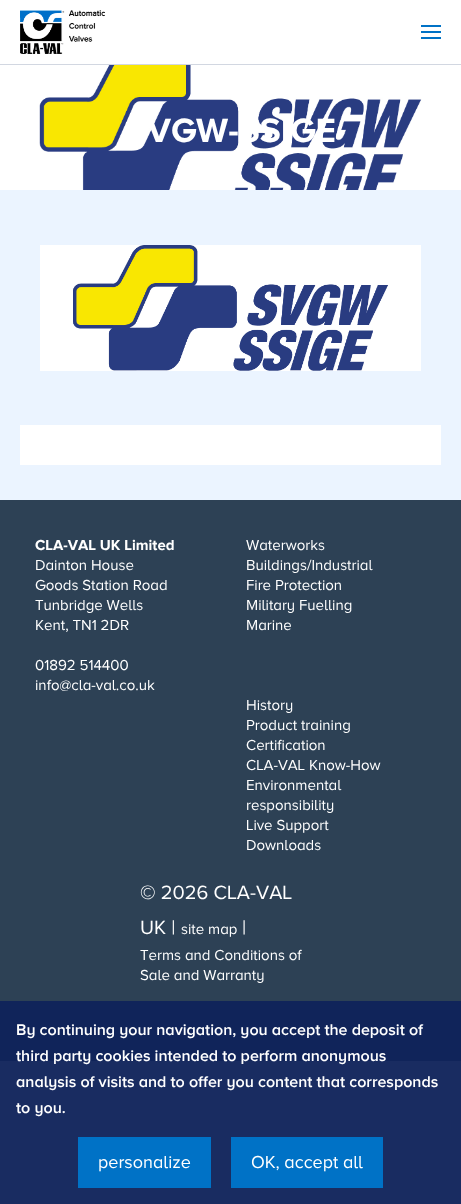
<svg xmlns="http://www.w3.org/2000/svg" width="461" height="1204">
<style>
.a{font:bold 35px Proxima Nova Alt;fill:#fff}
.b{font:bold 15px Proxima Nova Alt;fill:#fff}
.c{font:15px Proxima Nova Alt;fill:#fff}
.d{font:20px Proxima Nova Alt;fill:#fff}
.e{font:600 16px Proxima Nova Alt;fill:#fff}
.f{font:18px Proxima Nova Alt;fill:#fff}
</style>
<rect width="100%" height="100%" fill="#fff"/>
<path fill="#192c61" d="M0 1061h461v143H0z"/>
<image href="1.png" x="39" y="65" width="383" height="125"/>
<path fill="#d2d7e1" d="M0 64h461v1H0z"/>
<image href="2.png" x="20" y="10" width="85" height="44"/>
<path fill="#0072c6" d="M421 31h20v2H421z"/>
<path fill="#0072c6" d="M421 25h20v2H421z"/>
<path fill="#0072c6" d="M421 37h20v2H421z"/>
<path fill="#ebf4ff" d="M0 190h461v310H0z"/>
<image href="3.png" x="40" y="245" width="381" height="126"/>
<path fill="#fff" d="M20 425h421v40H20z"/>
<path fill="#2d4155" d="M0 500h461v501H0z"/>
<path fill="#10245a" d="M0 1001h461v60H0z"/>
<path fill="#0072c6" d="M78 1137h133v51H78z"/>
<path fill="#0072c6" d="M231 1137h152v51H231z"/>
<text class="a" x="147" y="142">VGW-SSIGE</text>
<text class="b" x="35" y="550">CLA-VAL UK Limited</text>
<text class="c" x="35" y="570">Dainton House</text>
<text class="c" x="35" y="590">Goods Station Road</text>
<text class="c" x="35" y="610">Tunbridge Wells</text>
<text class="c" x="35" y="630">Kent, TN1 2DR</text>
<text class="c" x="35" y="670">01892 514400</text>
<text class="c" x="35" y="690">info@cla-val.co.uk</text>
<text class="c" x="246" y="550">Waterworks</text>
<text class="c" x="246" y="570">Buildings/Industrial</text>
<text class="c" x="246" y="590">Fire Protection</text>
<text class="c" x="246" y="610">Military Fuelling</text>
<text class="c" x="246" y="630">Marine</text>
<text class="c" x="246" y="710">History</text>
<text class="c" x="246" y="730">Product training</text>
<text class="c" x="246" y="750">Certification</text>
<text class="c" x="246" y="770">CLA-VAL Know-How</text>
<text class="c" x="246" y="790">Environmental</text>
<text class="c" x="246" y="810">responsibility</text>
<text class="c" x="246" y="830">Live Support</text>
<text class="c" x="246" y="850">Downloads</text>
<text class="d" x="140" y="899">© 2026 CLA-VAL</text>
<text class="d" x="140" y="934">UK |</text>
<text class="c" x="181" y="934">site map</text>
<text class="d" x="242" y="934">|</text>
<text class="c" x="140" y="960">Terms and Conditions of</text>
<text class="c" x="140" y="980">Sale and Warranty</text>
<text class="e" x="16" y="1035">By continuing your navigation, you accept the deposit of</text>
<text class="e" x="16" y="1061">third party cookies intended to perform anonymous</text>
<text class="e" x="16" y="1087">analysis of visits and to offer you content that corresponds</text>
<text class="e" x="16" y="1113">to you.</text>
<text class="f" x="98" y="1168">personalize</text>
<text class="f" x="251" y="1168">OK, accept all</text>
</svg>
